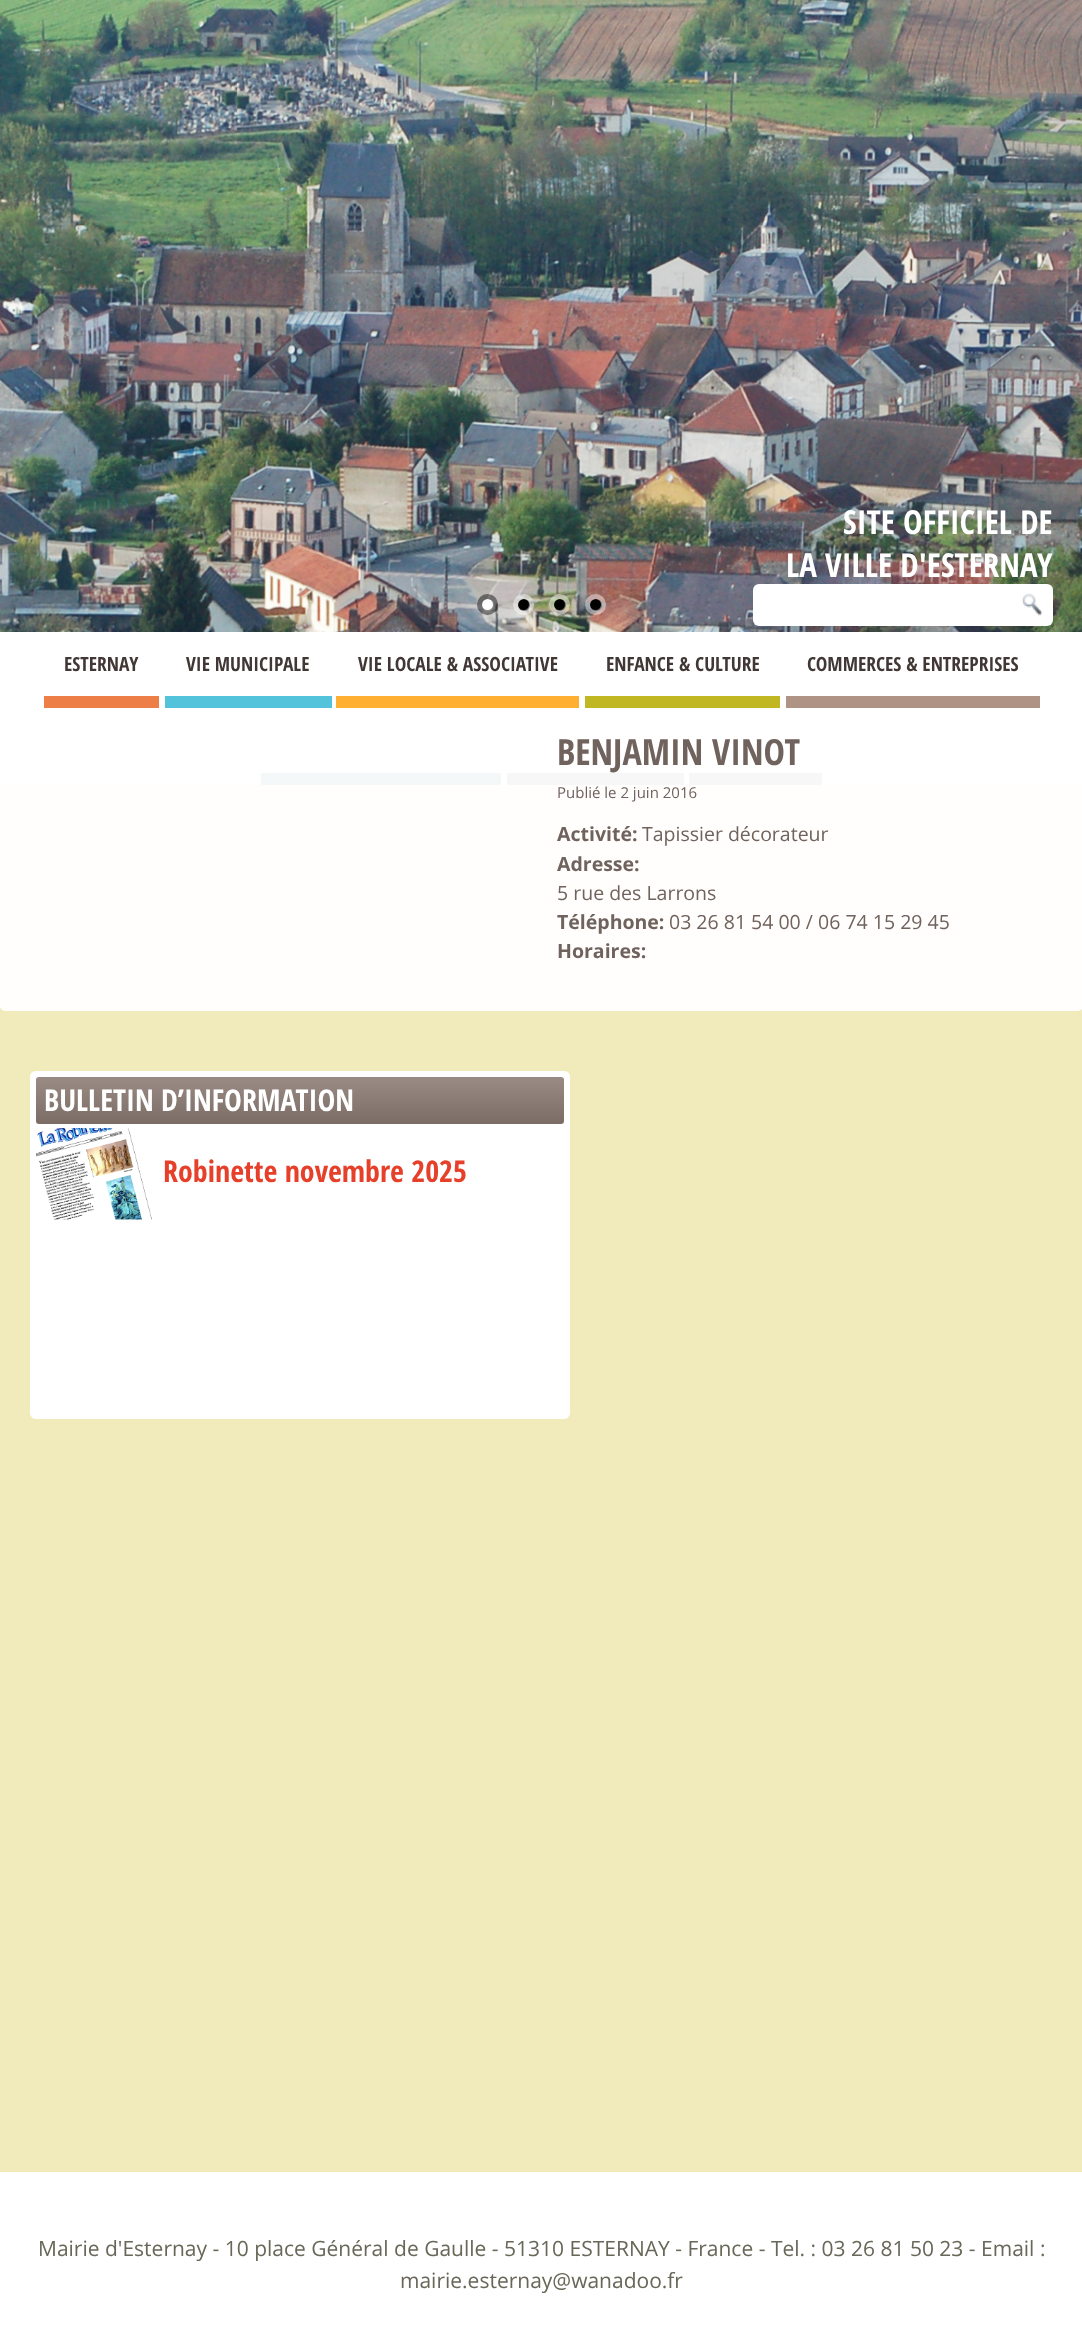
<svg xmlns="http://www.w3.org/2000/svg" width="1082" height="2334">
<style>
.a{font:bold 33px Open Sans Condensed;fill:#fff}
.b{font:bold 19.5px Open Sans Condensed;fill:#413835}
.c{font:bold 36px Open Sans Condensed;fill:#70625c}
.d{font:15px Open Sans;fill:#70625c}
.e{font:bold 19.5px Open Sans;fill:#70625c}
.f{font:19.5px Open Sans;fill:#70625c}
.g{font:bold 30px Open Sans Condensed;fill:#fff}
.h{font:bold 30px Open Sans Condensed;fill:#e6402a}
.i{font:21px Open Sans;fill:#686758}
</style>
<defs>
<linearGradient id="g1" gradientUnits="userSpaceOnUse" x1="300" y1="1077" x2="300" y2="1124"><stop offset="0" stop-color="#9a8b84"/><stop offset="1" stop-color="#7b6d66"/></linearGradient>
</defs>
<rect width="100%" height="100%" fill="#f1ebbb"/>
<image href="1.png" x="0" y="0" width="1082" height="632"/>
<circle fill="#fff" cx="488" cy="605" r="6"/>
<circle fill="none" stroke="#00000070" stroke-width="5" cx="487.5" cy="604.5" r="8"/>
<circle fill="#000" cx="524" cy="605" r="6"/>
<circle fill="none" stroke="#ffffff70" stroke-width="5" cx="523.5" cy="604.5" r="8"/>
<circle fill="#000" cx="560" cy="605" r="6"/>
<circle fill="none" stroke="#ffffff70" stroke-width="5" cx="559.5" cy="604.5" r="8"/>
<circle fill="#000" cx="596" cy="605" r="6"/>
<circle fill="none" stroke="#ffffff70" stroke-width="5" cx="595.5" cy="604.5" r="8"/>
<rect fill="#fff" x="753" y="584" width="300" height="42" rx="6"/>
<image href="2.png" x="1021" y="593" width="22" height="23"/>
<path fill="#fff" d="M0 632h1082v153H0z"/>
<path fill="#ee7e47" d="M44 696h115v12H44z"/>
<path fill="#53c3db" d="M165 696h167v12H165z"/>
<path fill="#ffaf32" d="M336 696h243v12H336z"/>
<path fill="#c0b723" d="M585 696h195v12H585z"/>
<path fill="#af9485" d="M786 696h254v12H786z"/>
<path fill="#3c7e8c" d="M261 773h240v12H261z"/>
<path fill="#796a63" d="M507 773h177v12H507z"/>
<path fill="#796a63" d="M689 773h133v12H689z"/>
<rect fill="#fffffff2" y="713" width="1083" height="298" rx="5"/>
<rect fill="#fff" x="30" y="1071" width="540" height="348" rx="6"/>
<rect fill="url(#g1)" x="36" y="1077" width="528" height="47" rx="3"/>
<image href="3.png" x="36" y="1128" width="117" height="92"/>
<path fill="#fff" d="M0 2172h1082v162H0z"/>
<text class="a" x="843" y="534">SITE OFFICIEL DE</text>
<text class="a" x="786" y="577">LA VILLE D'ESTERNAY</text>
<text class="b" x="64" y="671">ESTERNAY</text>
<text class="b" x="186" y="671">VIE MUNICIPALE</text>
<text class="b" x="358" y="671">VIE LOCALE &amp; ASSOCIATIVE</text>
<text class="b" x="606" y="671">ENFANCE &amp; CULTURE</text>
<text class="b" x="807" y="671">COMMERCES &amp; ENTREPRISES</text>
<text class="c" x="557" y="765">BENJAMIN VINOT</text>
<text class="d" x="557" y="798">Publié le 2 juin 2016</text>
<text class="e" x="557" y="841">Activité:</text>
<text class="f" x="642" y="841">Tapissier décorateur</text>
<text class="e" x="557" y="871">Adresse:</text>
<text class="f" x="557" y="900">5 rue des Larrons</text>
<text class="e" x="557" y="929">Téléphone:</text>
<text class="f" x="669" y="929">03 26 81 54 00 / 06 74 15 29 45</text>
<text class="e" x="557" y="958">Horaires:</text>
<text class="g" x="44" y="1111">BULLETIN D’INFORMATION</text>
<text class="h" x="163" y="1182">Robinette novembre 2025</text>
<text class="i" x="38" y="2256">Mairie d'Esternay - 10 place Général de Gaulle - 51310 ESTERNAY - France - Tel. : 03 26 81 50 23 - Email :</text>
<text class="i" x="400" y="2288">mairie.esternay@wanadoo.fr</text>
</svg>
